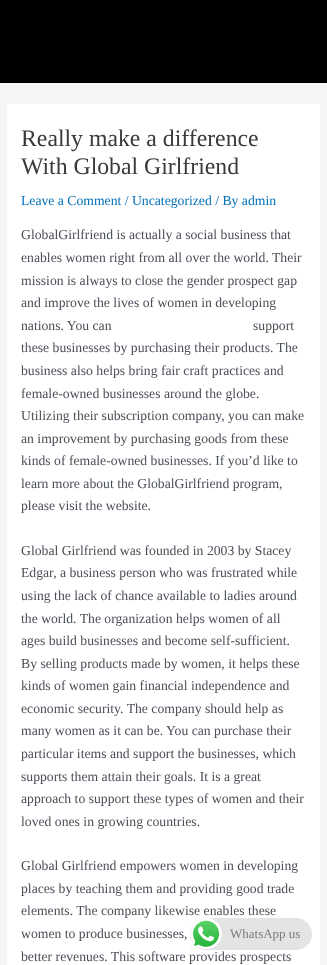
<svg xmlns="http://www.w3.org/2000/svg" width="327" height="965">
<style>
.a{font:23.75px Liberation Serif;fill:#3a3a3a}
.b{font:13.7px Liberation Serif;fill:#0170b9}
.c{font:13.7px Liberation Serif;fill:#4b4f58}
.d{font:13px Liberation Serif;fill:#7f7d7d}
</style>
<rect width="100%" height="100%" fill="#f5f5f5"/>
<path fill="#000" d="M0 0h327v83H0z"/>
<path fill="#fff" d="M7 104h313v861H7z"/>
<rect fill="#e4e4e4" x="190" y="918" width="122" height="32" rx="16"/>
<image href="1.png" x="190" y="918" width="32" height="32"/>
<text class="a" x="21" y="146">Really make a difference</text>
<text class="a" x="21" y="174">With Global Girlfriend</text>
<text class="b" x="21" y="205">Leave a Comment / Uncategorized / By admin</text>
<text class="c" x="21" y="239">GlobalGirlfriend is actually a social business that</text>
<text class="c" x="21" y="262">enables women right from all over the world. Their</text>
<text class="c" x="21" y="285">mission is always to close the gender prospect gap</text>
<text class="c" x="21" y="307">and improve the lives of women in developing</text>
<text class="c" x="21" y="330">nations. You can</text>
<text class="c" x="253" y="330">support</text>
<text class="c" x="21" y="352">these businesses by purchasing their products. The</text>
<text class="c" x="21" y="375">business also helps bring fair craft practices and</text>
<text class="c" x="21" y="398">female-owned businesses around the globe.</text>
<text class="c" x="21" y="420">Utilizing their subscription company, you can make</text>
<text class="c" x="21" y="443">an improvement by purchasing goods from these</text>
<text class="c" x="21" y="465">kinds of female-owned businesses. If you’d like to</text>
<text class="c" x="21" y="488">learn more about the GlobalGirlfriend program,</text>
<text class="c" x="21" y="510">please visit the website.</text>
<text class="c" x="21" y="555">Global Girlfriend was founded in 2003 by Stacey</text>
<text class="c" x="21" y="577">Edgar, a business person who was frustrated while</text>
<text class="c" x="21" y="600">using the lack of chance available to ladies around</text>
<text class="c" x="21" y="623">the world. The organization helps women of all</text>
<text class="c" x="21" y="645">ages build businesses and become self-sufficient.</text>
<text class="c" x="21" y="668">By selling products made by women, it helps these</text>
<text class="c" x="21" y="690">kinds of women gain financial independence and</text>
<text class="c" x="21" y="713">economic security. The company should help as</text>
<text class="c" x="21" y="735">many women as it can be. You can purchase their</text>
<text class="c" x="21" y="758">particular items and support the businesses, which</text>
<text class="c" x="21" y="781">supports them attain their goals. It is a great</text>
<text class="c" x="21" y="803">approach to support these types of women and their</text>
<text class="c" x="21" y="826">loved ones in growing countries.</text>
<text class="c" x="21" y="870">Global Girlfriend empowers women in developing</text>
<text class="c" x="21" y="893">places by teaching them and providing good trade</text>
<text class="c" x="21" y="915">elements. The company likewise enables these</text>
<text class="c" x="21" y="938">women to produce businesses,</text>
<text class="c" x="21" y="961">better revenues. This software provides prospects</text>
<text class="d" x="230" y="938">WhatsApp us</text>
</svg>
